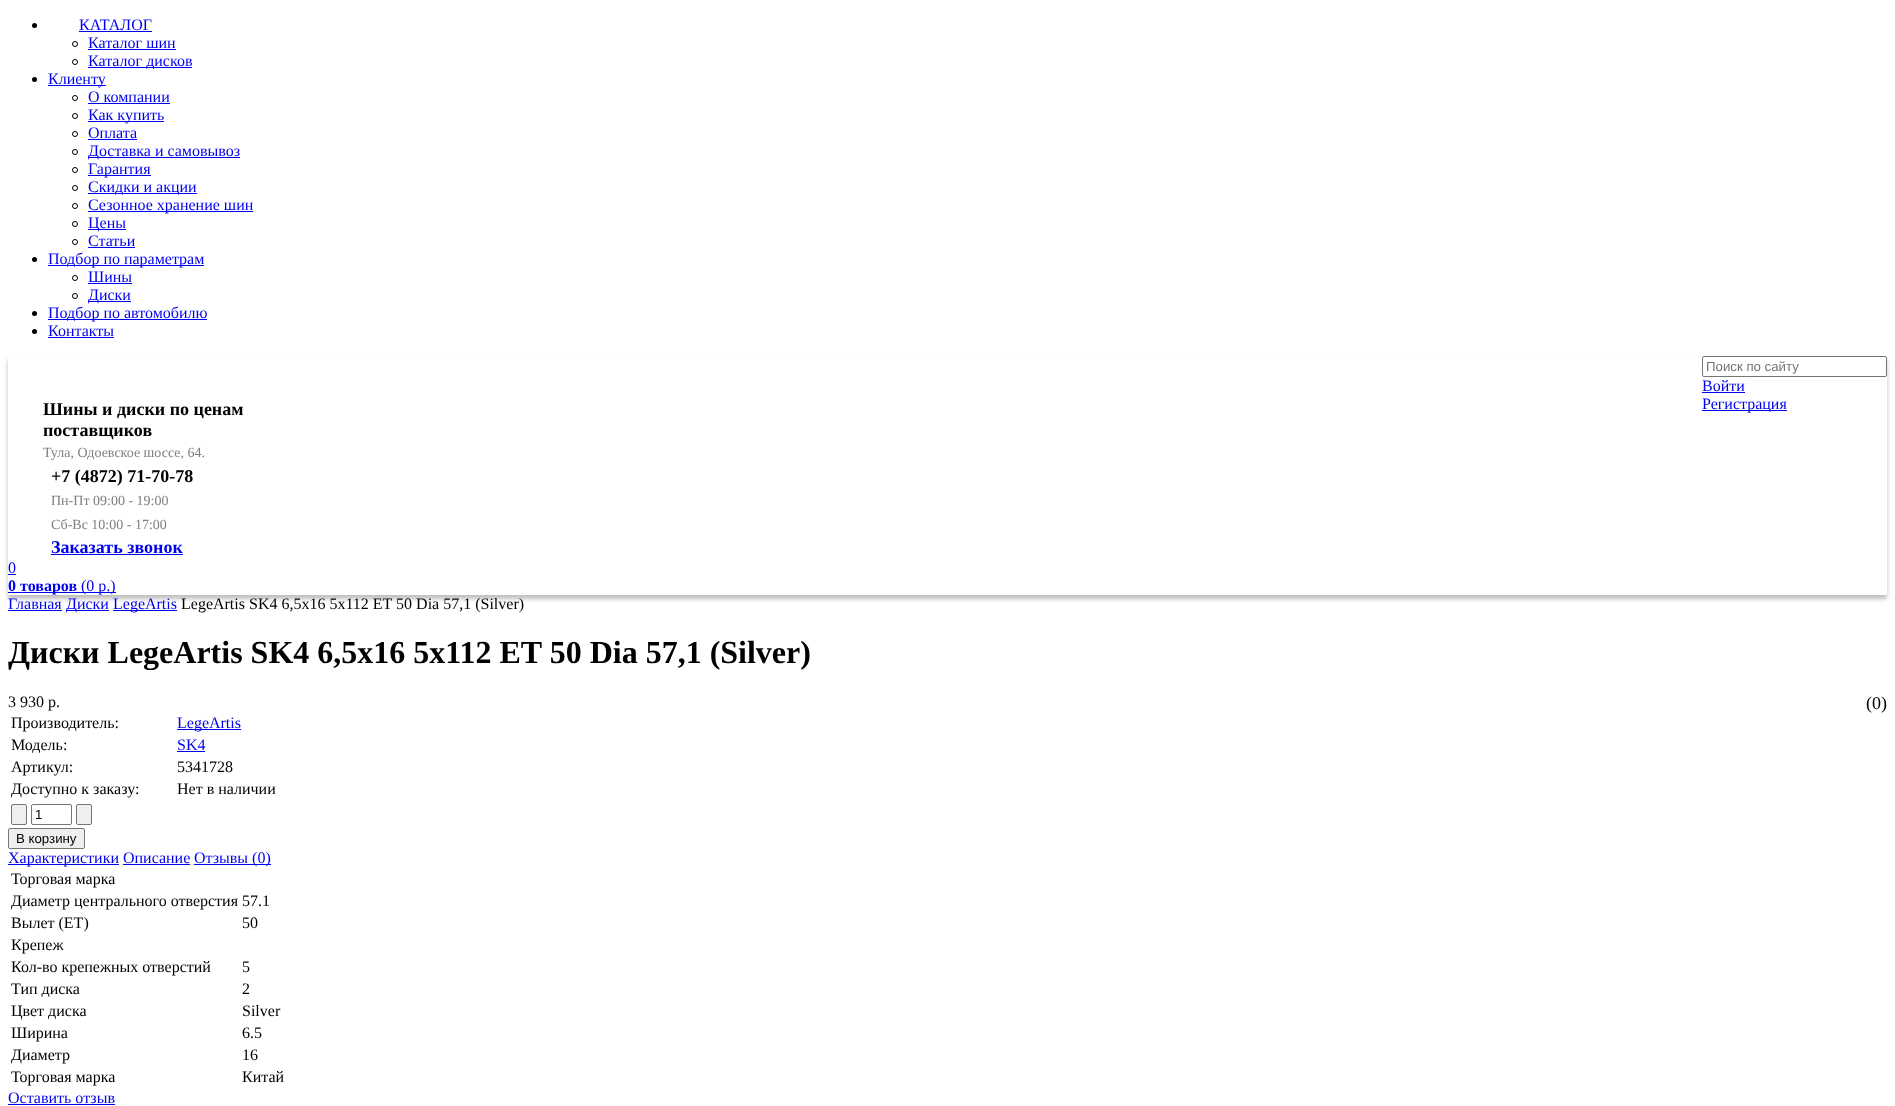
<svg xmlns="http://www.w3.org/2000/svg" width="1895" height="1106">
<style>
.a{font:16px Liberation Serif;fill:#00e}
.b{font:13.25px Liberation Sans;fill:#757575}
.c{font:bold 18px Liberation Serif;fill:#000}
.d{font:14px Liberation Serif;fill:#7f7f7f}
.e{font:bold 18px Liberation Serif;fill:#00e}
.f{font:bold 16px Liberation Serif;fill:#00e}
.g{font:16px Liberation Serif;fill:#000}
.h{font:bold 32px Liberation Serif;fill:#000}
.i{font:18px Liberation Serif;fill:#000}
.j{font:13.25px Liberation Sans;fill:#000}
</style>
<defs>
<clipPath id="clip1"><path d="M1 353h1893v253h-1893zm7 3h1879v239h-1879z" clip-rule="evenodd"/></clipPath>
</defs>
<rect width="100%" height="100%" fill="#fff"/>
<circle fill="#000" cx="34.5" cy="25.5" r="2.5"/>
<path fill="#00e" d="M79 31h73v1H79z"/>
<circle fill="none" stroke="#000" cx="75" cy="44" r="2.5"/>
<path fill="#00e" d="M88 49h88v1H88z"/>
<circle fill="none" stroke="#000" cx="75" cy="62" r="2.5"/>
<path fill="#00e" d="M88 67h104v1H88z"/>
<circle fill="#000" cx="34.5" cy="79.5" r="2.5"/>
<path fill="#00e" d="M48 85h58v1H48z"/>
<circle fill="none" stroke="#000" cx="75" cy="98" r="2.5"/>
<path fill="#00e" d="M88 103h82v1H88z"/>
<circle fill="none" stroke="#000" cx="75" cy="116" r="2.5"/>
<path fill="#00e" d="M88 121h76v1H88z"/>
<circle fill="none" stroke="#000" cx="75" cy="134" r="2.5"/>
<path fill="#00e" d="M88 139h49v1H88z"/>
<circle fill="none" stroke="#000" cx="75" cy="152" r="2.5"/>
<path fill="#00e" d="M88 157h152v1H88z"/>
<circle fill="none" stroke="#000" cx="75" cy="170" r="2.5"/>
<path fill="#00e" d="M88 175h63v1H88z"/>
<circle fill="none" stroke="#000" cx="75" cy="188" r="2.5"/>
<path fill="#00e" d="M88 193h109v1H88z"/>
<circle fill="none" stroke="#000" cx="75" cy="206" r="2.5"/>
<path fill="#00e" d="M88 211h165v1H88z"/>
<circle fill="none" stroke="#000" cx="75" cy="224" r="2.5"/>
<path fill="#00e" d="M88 229h38v1H88z"/>
<circle fill="none" stroke="#000" cx="75" cy="242" r="2.5"/>
<path fill="#00e" d="M88 247h47v1H88z"/>
<circle fill="#000" cx="34.5" cy="259.5" r="2.5"/>
<path fill="#00e" d="M48 265h156v1H48z"/>
<circle fill="none" stroke="#000" cx="75" cy="278" r="2.5"/>
<path fill="#00e" d="M88 283h44v1H88z"/>
<circle fill="none" stroke="#000" cx="75" cy="296" r="2.5"/>
<path fill="#00e" d="M88 301h43v1H88z"/>
<circle fill="#000" cx="34.5" cy="313.5" r="2.5"/>
<path fill="#00e" d="M48 319h159v1H48z"/>
<circle fill="#000" cx="34.5" cy="331.5" r="2.5"/>
<path fill="#00e" d="M48 337h66v1H48z"/>
<g clip-path="url(#clip1)">
<path fill="#00000040" filter="blur(2px)" d="M8 360h1879v239H8z"/>
</g>
<rect fill="none" stroke="#767676" x="1702.5" y="356.5" width="184" height="20" rx="1.5"/>
<path fill="#00e" d="M1702 392h43v1H1702z"/>
<path fill="#00e" d="M1702 410h85v1H1702z"/>
<path fill="#00e" d="M51 554h132v1H51z"/>
<path fill="#00e" d="M8 574h8v1H8z"/>
<path fill="#00e" d="M8 592h108v1H8z"/>
<path fill="#00e" d="M8 610h54v1H8z"/>
<path fill="#00e" d="M66 610h43v1H66z"/>
<path fill="#00e" d="M113 610h64v1H113z"/>
<path fill="#00e" d="M177 729h64v1H177z"/>
<path fill="#00e" d="M177 751h28v1H177z"/>
<rect fill="#efefef" stroke="#767676" x="11.5" y="804.5" width="15" height="20" rx="1.5"/>
<rect fill="none" stroke="#767676" x="31.5" y="804.5" width="40" height="20" rx="1.5"/>
<rect fill="#efefef" stroke="#767676" x="76.5" y="804.5" width="15" height="20" rx="1.5"/>
<rect fill="#efefef" stroke="#767676" x="8.5" y="828.5" width="76" height="20" rx="1.5"/>
<path fill="#00e" d="M8 864h111v1H8z"/>
<path fill="#00e" d="M194 864h77v1H194z"/>
<path fill="#00e" d="M123 864h67v1H123z"/>
<path fill="#00e" d="M8 1104h107v1H8z"/>
<text class="a" x="79" y="30">КАТАЛОГ</text>
<text class="a" x="88" y="48">Каталог шин</text>
<text class="a" x="88" y="66">Каталог дисков</text>
<text class="a" x="48" y="84">Клиенту</text>
<text class="a" x="88" y="102">О компании</text>
<text class="a" x="88" y="120">Как купить</text>
<text class="a" x="88" y="138">Оплата</text>
<text class="a" x="88" y="156">Доставка и самовывоз</text>
<text class="a" x="88" y="174">Гарантия</text>
<text class="a" x="88" y="192">Скидки и акции</text>
<text class="a" x="88" y="210">Сезонное хранение шин</text>
<text class="a" x="88" y="228">Цены</text>
<text class="a" x="88" y="246">Статьи</text>
<text class="a" x="48" y="264">Подбор по параметрам</text>
<text class="a" x="88" y="282">Шины</text>
<text class="a" x="88" y="300">Диски</text>
<text class="a" x="48" y="318">Подбор по автомобилю</text>
<text class="a" x="48" y="336">Контакты</text>
<text class="b" x="1706" y="371">Поиск по сайту</text>
<text class="a" x="1702" y="391">Войти</text>
<text class="a" x="1702" y="409">Регистрация</text>
<text class="c" x="43" y="415">Шины и диски по ценам</text>
<text class="c" x="43" y="436">поставщиков</text>
<text class="d" x="43" y="457">Тула, Одоевское шоссе, 64.</text>
<text class="c" x="51" y="482">+7 (4872) 71-70-78</text>
<text class="d" x="51" y="505">Пн-Пт 09:00 - 19:00</text>
<text class="d" x="51" y="529">Сб-Вс 10:00 - 17:00</text>
<text class="e" x="51" y="553">Заказать звонок</text>
<text class="a" x="8" y="573">0</text>
<text class="f" x="8" y="591">0 товаров</text>
<text class="a" x="81" y="591">(0 р.)</text>
<text class="a" x="8" y="609">Главная</text>
<text class="a" x="66" y="609">Диски</text>
<text class="a" x="113" y="609">LegeArtis</text>
<text class="g" x="181" y="609">LegeArtis SK4 6,5x16 5x112 ET 50 Dia 57,1 (Silver)</text>
<text class="h" x="8" y="663">Диски LegeArtis SK4 6,5x16 5x112 ET 50 Dia 57,1 (Silver)</text>
<text class="g" x="8" y="707">3 930 р.</text>
<text class="i" x="1866" y="709">(0)</text>
<text class="g" x="11" y="728">Производитель:</text>
<text class="a" x="177" y="728">LegeArtis</text>
<text class="g" x="11" y="750">Модель:</text>
<text class="a" x="177" y="750">SK4</text>
<text class="g" x="11" y="772">Артикул:</text>
<text class="g" x="177" y="772">5341728</text>
<text class="g" x="11" y="794">Доступно к заказу:</text>
<text class="g" x="177" y="794">Нет в наличии</text>
<text class="j" x="35" y="819">1</text>
<text class="j" x="16" y="843">В корзину</text>
<text class="a" x="8" y="863">Характеристики Описание</text>
<text class="a" x="194" y="863">Отзывы (0)</text>
<text class="g" x="11" y="884">Торговая марка</text>
<text class="g" x="11" y="906">Диаметр центрального отверстия 57.1</text>
<text class="g" x="11" y="928">Вылет (ET)</text>
<text class="g" x="242" y="928">50</text>
<text class="g" x="11" y="950">Крепеж</text>
<text class="g" x="11" y="972">Кол-во крепежных отверстий</text>
<text class="g" x="242" y="972">5</text>
<text class="g" x="11" y="994">Тип диска</text>
<text class="g" x="242" y="994">2</text>
<text class="g" x="11" y="1016">Цвет диска</text>
<text class="g" x="242" y="1016">Silver</text>
<text class="g" x="11" y="1038">Ширина</text>
<text class="g" x="242" y="1038">6.5</text>
<text class="g" x="11" y="1060">Диаметр</text>
<text class="g" x="242" y="1060">16</text>
<text class="g" x="11" y="1082">Торговая марка</text>
<text class="g" x="242" y="1082">Китай</text>
<text class="a" x="8" y="1103">Оставить отзыв</text>
</svg>
